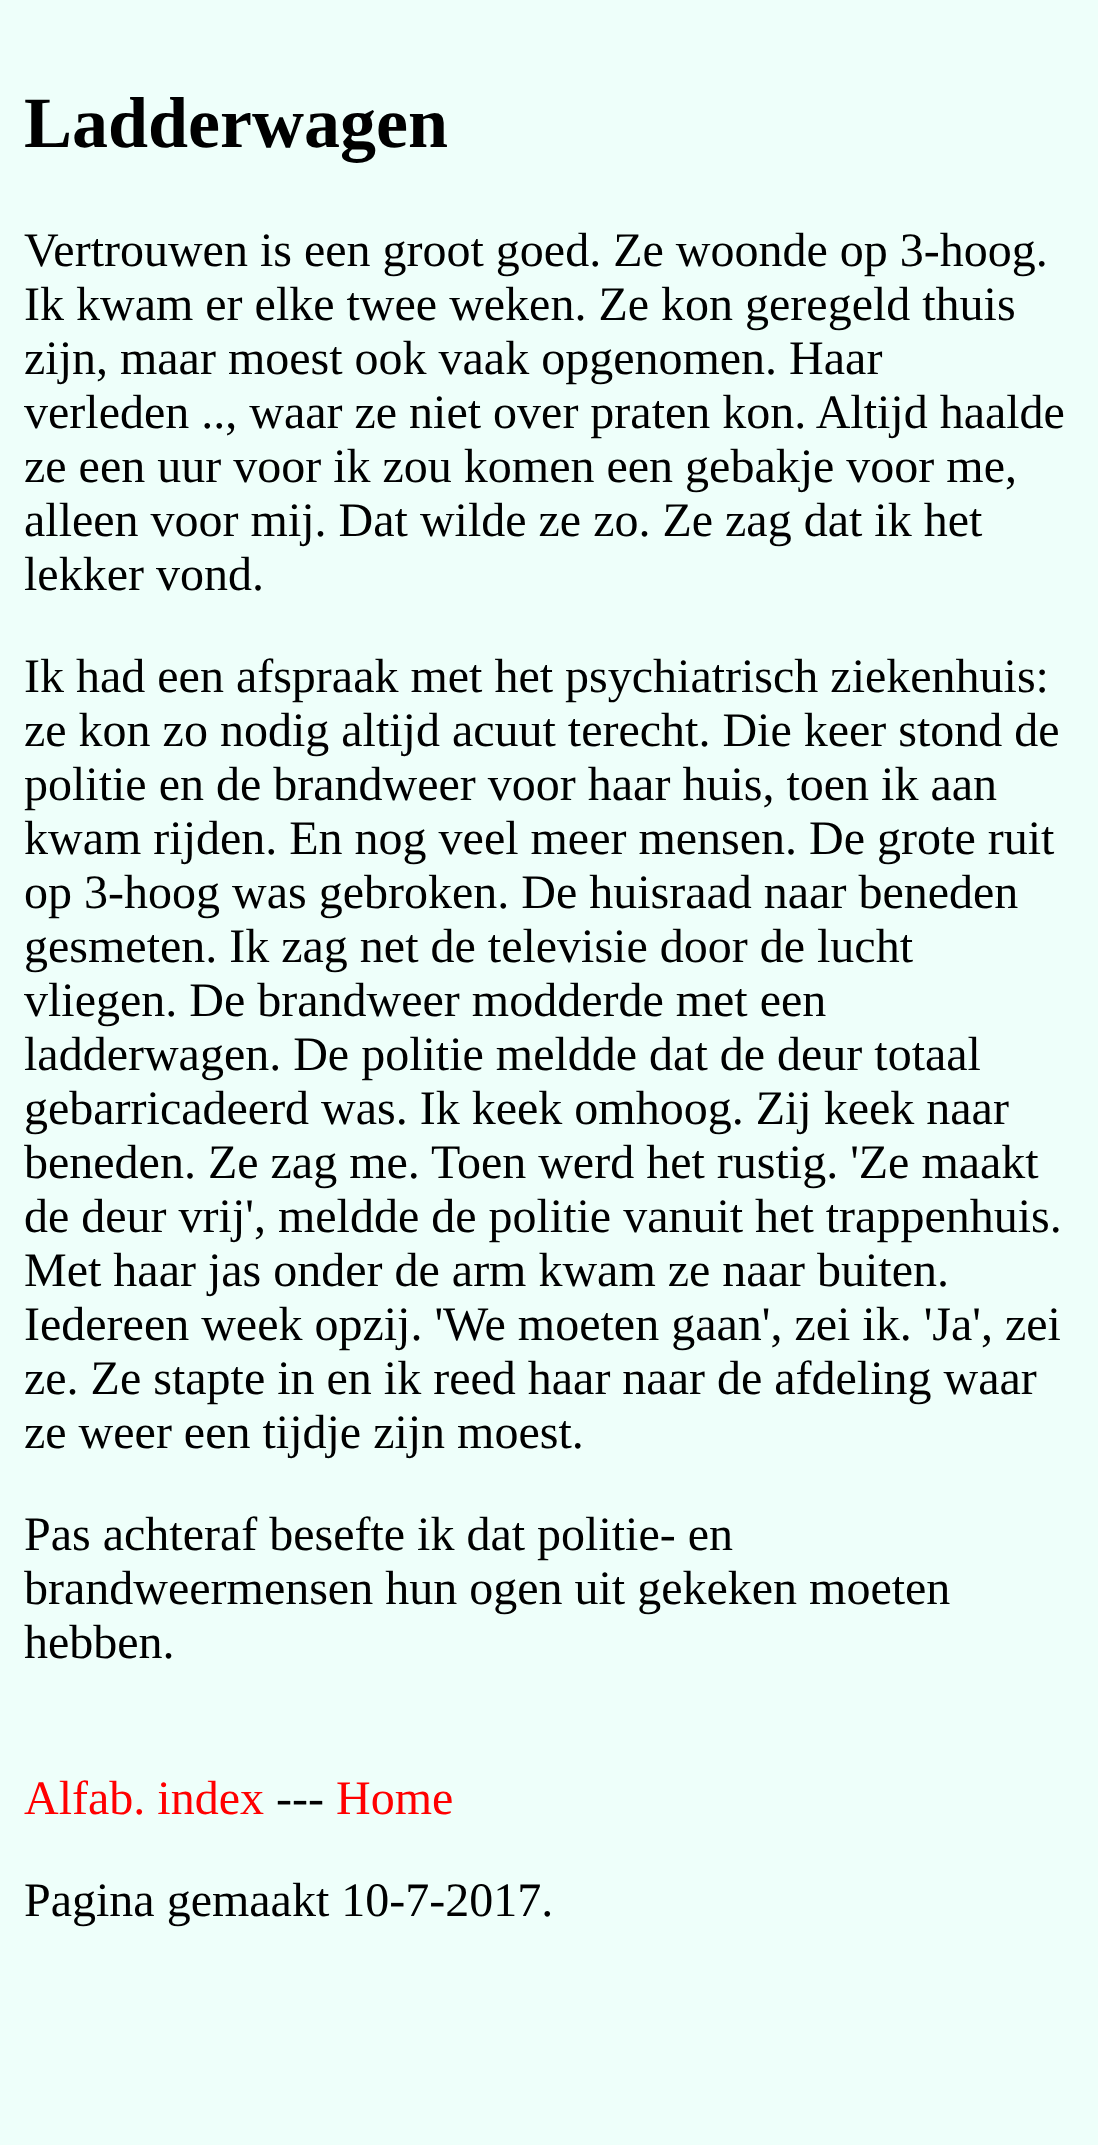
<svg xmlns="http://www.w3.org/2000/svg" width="1098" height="2145">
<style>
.a{font:bold 72px Liberation Serif;fill:#000}
.b{font:48px Liberation Serif;fill:#000}
.c{font:48px Liberation Serif;fill:#f00}
</style>
<rect width="100%" height="100%" fill="#eefffa"/>
<text class="a" x="24" y="147">Ladderwagen</text>
<text class="b" x="24" y="266">Vertrouwen is een groot goed. Ze woonde op 3-hoog.</text>
<text class="b" x="24" y="320">Ik kwam er elke twee weken. Ze kon geregeld thuis</text>
<text class="b" x="24" y="374">zijn, maar moest ook vaak opgenomen. Haar</text>
<text class="b" x="24" y="428">verleden .., waar ze niet over praten kon. Altijd haalde</text>
<text class="b" x="24" y="482">ze een uur voor ik zou komen een gebakje voor me,</text>
<text class="b" x="24" y="536">alleen voor mij. Dat wilde ze zo. Ze zag dat ik het</text>
<text class="b" x="24" y="590">lekker vond.</text>
<text class="b" x="24" y="692">Ik had een afspraak met het psychiatrisch ziekenhuis:</text>
<text class="b" x="24" y="746">ze kon zo nodig altijd acuut terecht. Die keer stond de</text>
<text class="b" x="24" y="800">politie en de brandweer voor haar huis, toen ik aan</text>
<text class="b" x="24" y="854">kwam rijden. En nog veel meer mensen. De grote ruit</text>
<text class="b" x="24" y="908">op 3-hoog was gebroken. De huisraad naar beneden</text>
<text class="b" x="24" y="962">gesmeten. Ik zag net de televisie door de lucht</text>
<text class="b" x="24" y="1016">vliegen. De brandweer modderde met een</text>
<text class="b" x="24" y="1070">ladderwagen. De politie meldde dat de deur totaal</text>
<text class="b" x="24" y="1124">gebarricadeerd was. Ik keek omhoog. Zij keek naar</text>
<text class="b" x="24" y="1178">beneden. Ze zag me. Toen werd het rustig. 'Ze maakt</text>
<text class="b" x="24" y="1232">de deur vrij', meldde de politie vanuit het trappenhuis.</text>
<text class="b" x="24" y="1286">Met haar jas onder de arm kwam ze naar buiten.</text>
<text class="b" x="24" y="1340">Iedereen week opzij. 'We moeten gaan', zei ik. 'Ja', zei</text>
<text class="b" x="24" y="1394">ze. Ze stapte in en ik reed haar naar de afdeling waar</text>
<text class="b" x="24" y="1448">ze weer een tijdje zijn moest.</text>
<text class="b" x="24" y="1550">Pas achteraf besefte ik dat politie- en</text>
<text class="b" x="24" y="1604">brandweermensen hun ogen uit gekeken moeten</text>
<text class="b" x="24" y="1658">hebben.</text>
<text class="c" x="24" y="1814">Alfab. index</text>
<text class="b" x="276" y="1814">---</text>
<text class="c" x="336" y="1814">Home</text>
<text class="b" x="24" y="1916">Pagina gemaakt 10-7-2017.</text>
</svg>
